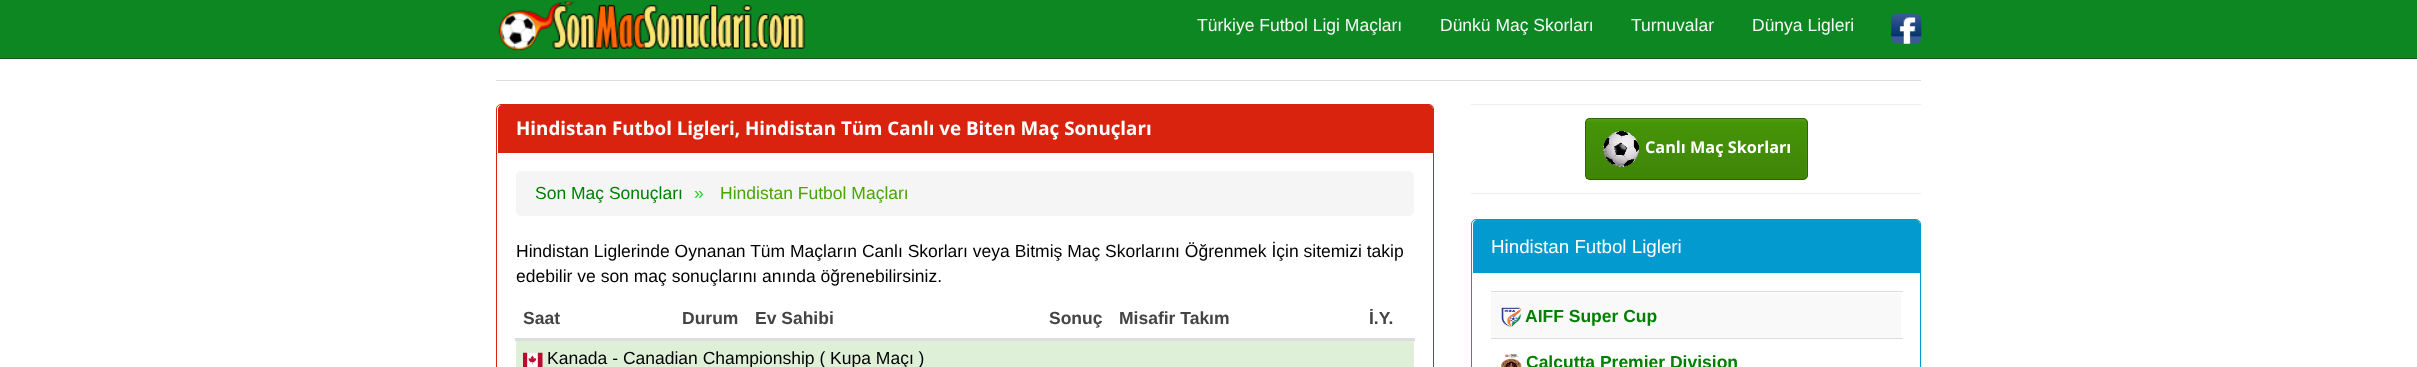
<svg xmlns="http://www.w3.org/2000/svg" width="2417" height="367">
<style>
.a{font:17.5px Liberation Sans;fill:#f4f8f9}
.b{font:bold 18.75px Open Sans;fill:#fff}
.c{font:17.5px Liberation Sans;fill:#008000}
.d{font:17.5px Liberation Sans;fill:#28cc25}
.e{font:17.5px Liberation Sans;fill:#46a605}
.f{font:17.5px Liberation Sans;fill:#000}
.g{font:bold 17.5px Liberation Sans;fill:#444}
.h{font:bold 16.25px Open Sans;fill:#fff}
.i{font:18.75px Liberation Sans;fill:#fff}
.j{font:bold 17.5px Liberation Sans;fill:#008000}
</style>
<defs>
<linearGradient id="g1" gradientUnits="userSpaceOnUse" x1="1696" y1="119" x2="1696" y2="179"><stop offset="0" stop-color="#4da309"/><stop offset="0.06" stop-color="#469408"/><stop offset="1" stop-color="#3f8507"/></linearGradient>
</defs>
<rect width="100%" height="100%" fill="#fff"/>
<path fill="#0c8721" d="M0 0h2417v58H0z"/>
<path fill="#175c23" d="M0 58h2417v1H0z"/>
<image href="1.png" x="498" y="1" width="308" height="50"/>
<image href="2.png" x="1891" y="13" width="31" height="31"/>
<path fill="#ddd" d="M496 80h1425v1H496z"/>
<rect fill="none" stroke="#d9230f" x="496.5" y="104.5" width="937" height="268" rx="4.5"/>
<path fill="#d9230f" d="M502 105h927c2 0 4 2 4 4v44h-935v-44c0-2 2-4 4-4z"/>
<rect fill="#f5f5f5" x="516" y="171" width="898" height="45" rx="5"/>
<path fill="#ddd" d="M515 338h900v3H515z"/>
<path fill="#dff0d8" d="M516 341h898v26H516z"/>
<image href="3.png" x="523" y="352" width="20" height="15"/>
<path fill="#eee" d="M1471 104h450v1H1471z"/>
<path fill="#eee" d="M1471 193h450v1H1471z"/>
<rect fill="#469408" x="1585" y="118" width="223" height="62" rx="5"/>
<path fill="url(#g1)" d="M1586 119h220v60H1586z"/>
<rect fill="none" stroke="#2f6405" x="1585.5" y="118.5" width="222" height="61" rx="4.5"/>
<image href="4.png" x="1603" y="131" width="36" height="36"/>
<rect fill="none" stroke="#029acf" x="1471.5" y="219.5" width="449" height="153" rx="4.5"/>
<path fill="#029acf" d="M1477 220h439c2 0 4 2 4 4v49h-447v-49c0-2 2-4 4-4z"/>
<path fill="#f9f9f9" d="M1491 293h410v45H1491z"/>
<path fill="#ddd" d="M1491 291h412v1H1491z"/>
<image href="5.png" x="1501" y="307" width="21" height="20"/>
<path fill="#ddd" d="M1491 338h412v1H1491z"/>
<image href="6.png" x="1501" y="354" width="21" height="13"/>
<text class="a" x="1197" y="31">Türkiye Futbol Ligi Maçları</text>
<text class="a" x="1440" y="31">Dünkü Maç Skorları</text>
<text class="a" x="1631" y="31">Turnuvalar</text>
<text class="a" x="1752" y="31">Dünya Ligleri</text>
<text class="b" x="516" y="135">Hindistan Futbol Ligleri, Hindistan Tüm Canlı ve Biten Maç Sonuçları</text>
<text class="c" x="535" y="199">Son Maç Sonuçları</text>
<text class="d" x="694" y="199">»</text>
<text class="e" x="720" y="199">Hindistan Futbol Maçları</text>
<text class="f" x="516" y="257">Hindistan Liglerinde Oynanan Tüm Maçların Canlı Skorları veya Bitmiş Maç Skorlarını Öğrenmek İçin sitemizi takip</text>
<text class="f" x="516" y="282">edebilir ve son maç sonuçlarını anında öğrenebilirsiniz.</text>
<text class="g" x="523" y="324">Saat</text>
<text class="g" x="682" y="324">Durum</text>
<text class="g" x="755" y="324">Ev Sahibi</text>
<text class="g" x="1049" y="324">Sonuç</text>
<text class="g" x="1119" y="324">Misafir Takım</text>
<text class="g" x="1369" y="324">İ.Y.</text>
<text class="f" x="547" y="364">Kanada - Canadian Championship ( Kupa Maçı )</text>
<text class="h" x="1645" y="153">Canlı Maç Skorları</text>
<text class="i" x="1491" y="253">Hindistan Futbol Ligleri</text>
<text class="j" x="1525" y="322">AIFF Super Cup</text>
<text class="j" x="1526" y="368">Calcutta Premier Division</text>
</svg>
